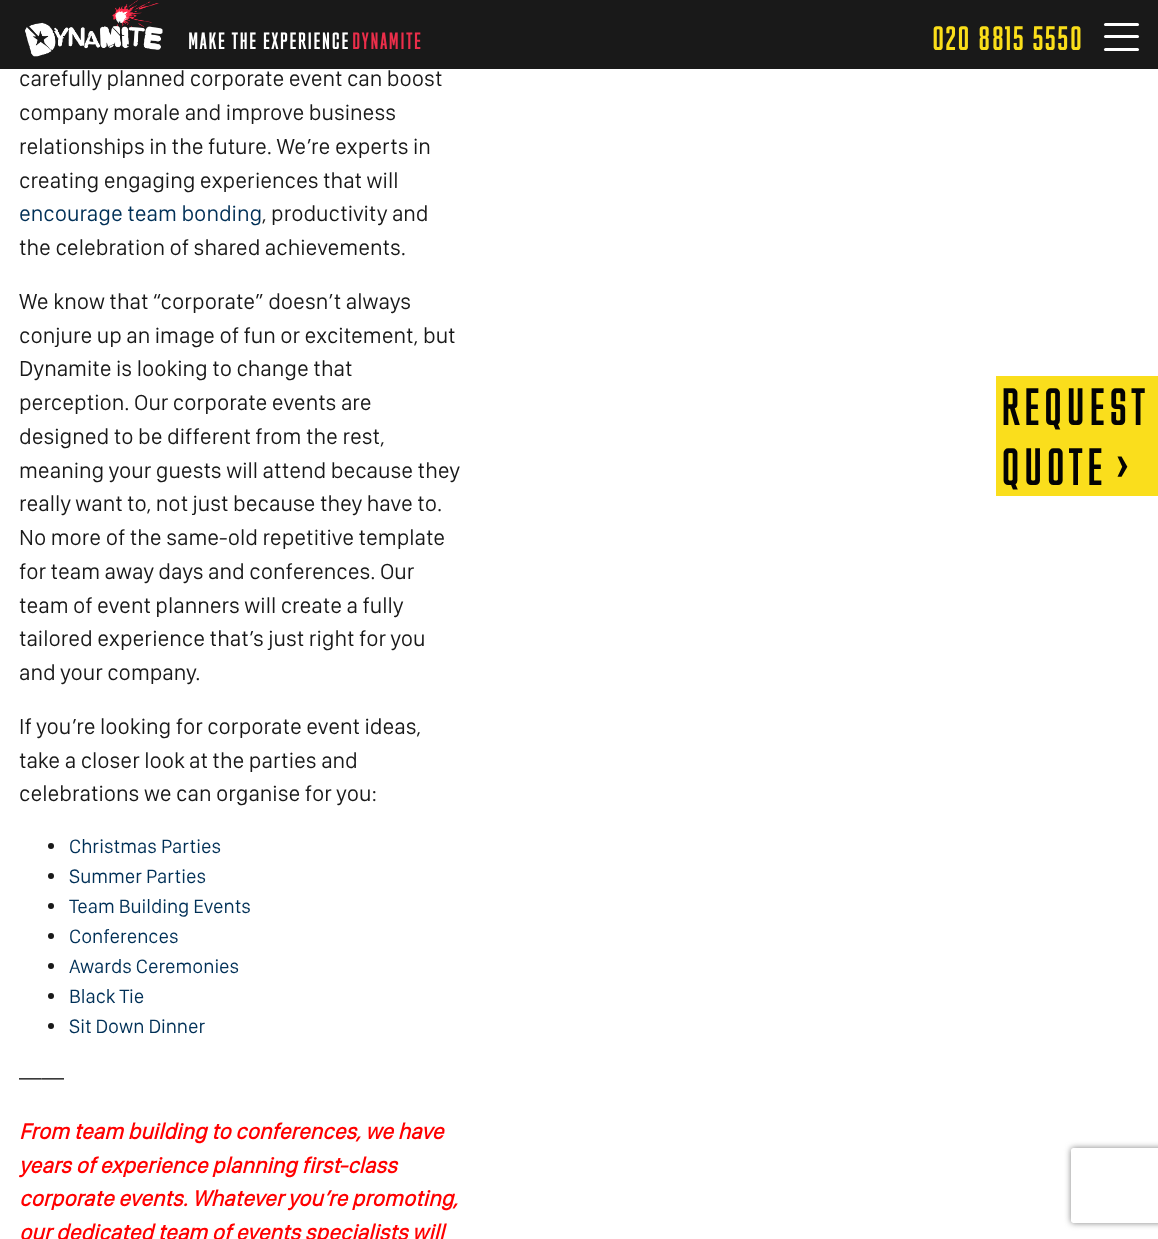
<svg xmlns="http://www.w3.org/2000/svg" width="1158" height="1239">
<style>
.a{font:22.5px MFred;letter-spacing:1.25px;fill:#fff}
.b{font:22.5px MFred;letter-spacing:1.25px;fill:#eb2e4a}
.c{font:32.5px MFred;letter-spacing:1.25px;fill:#fade1a}
.d{font:22.5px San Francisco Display;fill:#191919}
.e{font:22.5px San Francisco Display;fill:#003057}
.f{font:20px San Francisco Display;fill:#003057}
.g{font:italic bold 22.5px San Francisco Display;fill:#f00}
.h{font:50px MFred;letter-spacing:3.75px;fill:#030303}
</style>
<defs>
<clipPath id="clip1"><path d="M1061 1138h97v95h-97zm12.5 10h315c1.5 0 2.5 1 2.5 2.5v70c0 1.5-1 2.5-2.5 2.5h-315c-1.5 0-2.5-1-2.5-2.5v-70c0-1.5 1-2.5 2.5-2.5z" clip-rule="evenodd"/></clipPath>
</defs>
<rect width="100%" height="100%" fill="#fff"/>
<path fill="#191919" d="M0 0h1158v69H0z"/>
<image href="1.png" x="25" y="0" width="138" height="57"/>
<rect fill="#fff" x="1104" y="23" width="35" height="3" rx="1.5"/>
<rect fill="#fff" x="1104" y="35" width="35" height="3" rx="1.5"/>
<rect fill="#fff" x="1104" y="48" width="35" height="3" rx="1.5"/>
<circle fill="#191919" cx="51" cy="846" r="3"/>
<circle fill="#191919" cx="51" cy="876" r="3"/>
<circle fill="#191919" cx="51" cy="906" r="3"/>
<circle fill="#191919" cx="51" cy="936" r="3"/>
<circle fill="#191919" cx="51" cy="966" r="3"/>
<circle fill="#191919" cx="51" cy="996" r="3"/>
<circle fill="#191919" cx="51" cy="1026" r="3"/>
<path fill="#fade1c" d="M996 376h162v120H996z"/>
<g clip-path="url(#clip1)">
<rect fill="#808080" filter="blur(3px)" x="1071" y="1148" width="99" height="75" rx="2.5"/>
</g>
<text class="a" x="188" y="49">MAKE THE EXPERIENCE</text>
<text class="b" x="352" y="49">DYNAMITE</text>
<text class="c" x="932" y="50">020 8815 5550</text>
<text class="d" x="19" y="86">carefully planned corporate event can boost</text>
<text class="d" x="19" y="120">company morale and improve business</text>
<text class="d" x="19" y="154">relationships in the future. We’re experts in</text>
<text class="d" x="19" y="188">creating engaging experiences that will</text>
<text class="e" x="19" y="221">encourage team bonding</text>
<text class="d" x="262" y="221">, productivity and</text>
<text class="d" x="19" y="255">the celebration of shared achievements.</text>
<text class="d" x="19" y="309">We know that “corporate” doesn’t always</text>
<text class="d" x="19" y="343">conjure up an image of fun or excitement, but</text>
<text class="d" x="19" y="376">Dynamite is looking to change that</text>
<text class="d" x="19" y="410">perception. Our corporate events are</text>
<text class="d" x="19" y="444">designed to be different from the rest,</text>
<text class="d" x="19" y="478">meaning your guests will attend because they</text>
<text class="d" x="19" y="511">really want to, not just because they have to.</text>
<text class="d" x="19" y="545">No more of the same-old repetitive template</text>
<text class="d" x="19" y="579">for team away days and conferences. Our</text>
<text class="d" x="19" y="613">team of event planners will create a fully</text>
<text class="d" x="19" y="646">tailored experience that’s just right for you</text>
<text class="d" x="19" y="680">and your company.</text>
<text class="d" x="19" y="734">If you’re looking for corporate event ideas,</text>
<text class="d" x="19" y="768">take a closer look at the parties and</text>
<text class="d" x="19" y="801">celebrations we can organise for you:</text>
<text class="f" x="69" y="853">Christmas Parties</text>
<text class="f" x="69" y="883">Summer Parties</text>
<text class="f" x="69" y="913">Team Building Events</text>
<text class="f" x="69" y="943">Conferences</text>
<text class="f" x="69" y="973">Awards Ceremonies</text>
<text class="f" x="69" y="1003">Black Tie</text>
<text class="f" x="69" y="1033">Sit Down Dinner</text>
<text class="d" x="19" y="1085">——</text>
<text class="g" x="19" y="1139">From team building to conferences, we have</text>
<text class="g" x="19" y="1173">years of experience planning first-class</text>
<text class="g" x="19" y="1206">corporate events. Whatever you’re promoting,</text>
<text class="g" x="19" y="1240">our dedicated team of events specialists will</text>
<text class="h" x="1001" y="425">REQUEST</text>
<text class="h" x="1001" y="485">QUOTE</text>
<text class="h" x="1115" y="485">&gt;</text>
</svg>
